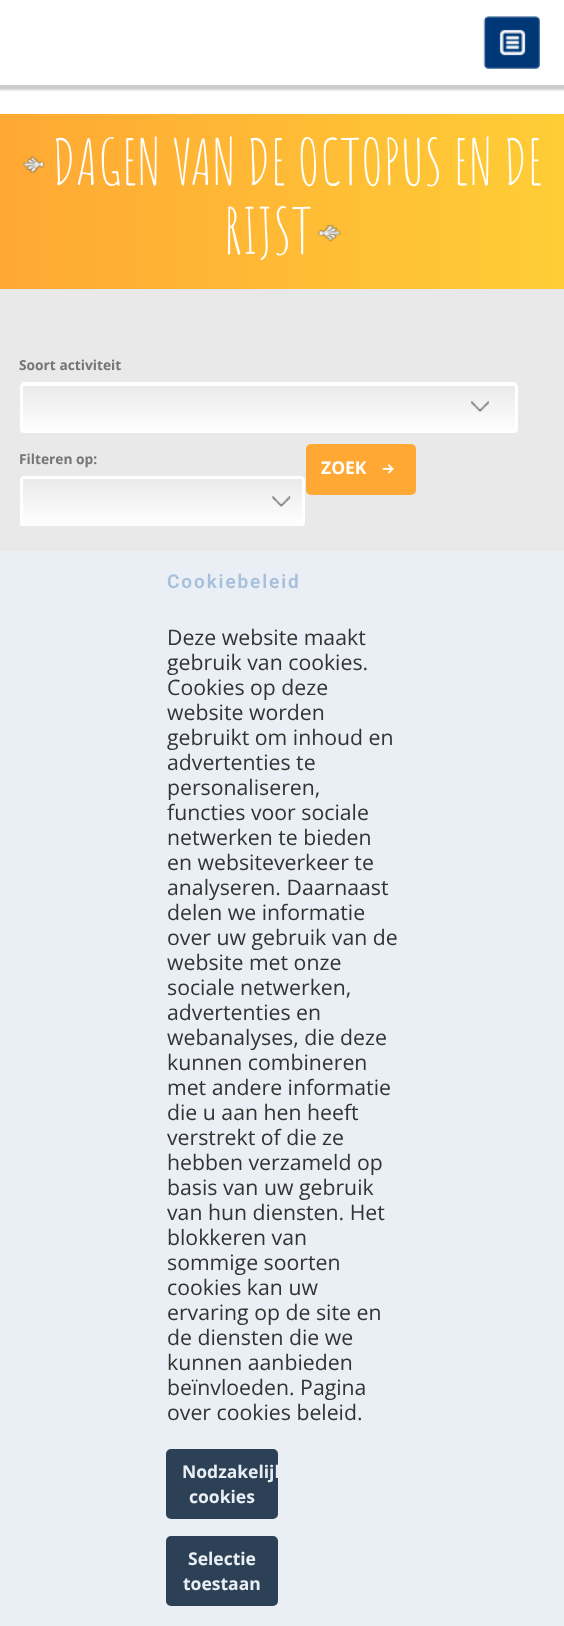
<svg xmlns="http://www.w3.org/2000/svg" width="564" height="1626">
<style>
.a{font:62.5px Amatic SC;fill:#fff}
.b{font:bold 13.75px Open Sans;fill:#757575}
.c{font:bold 17.5px Open Sans;fill:#fff}
.d{font:600 19px Roboto;letter-spacing:1.9px;fill:#a6bfdc}
.e{font:21.25px Open Sans;fill:#333}
.f{font:bold 17.5px Open Sans;fill:#e9eff4}
</style>
<defs>
<linearGradient id="g1" gradientUnits="userSpaceOnUse" x1="0" y1="201" x2="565" y2="201"><stop offset="0" stop-color="#ffa834"/><stop offset="1" stop-color="#ffcd36"/></linearGradient>
<clipPath id="clip1"><rect x="19" y="381" width="500" height="53" rx="5"/></clipPath>
<linearGradient id="g2" gradientUnits="userSpaceOnUse" x1="269" y1="333" x2="269" y2="383"><stop offset="0" stop-color="#e9e9e9"/><stop offset="1" stop-color="#fff"/></linearGradient>
<linearGradient id="g3" gradientUnits="userSpaceOnUse" x1="269" y1="383" x2="269" y2="433"><stop offset="0" stop-color="#e9e9e9"/><stop offset="1" stop-color="#fff"/></linearGradient>
<clipPath id="clip2"><rect x="19" y="475" width="287" height="53" rx="5"/></clipPath>
<linearGradient id="g4" gradientUnits="userSpaceOnUse" x1="163" y1="476" x2="163" y2="526"><stop offset="0" stop-color="#e9e9e9"/><stop offset="1" stop-color="#fff"/></linearGradient>
</defs>
<rect width="100%" height="100%" fill="#fff"/>
<path fill="#00000033" filter="blur(1px)" d="M-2 0h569v90H-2z"/>
<path fill="#fff" d="M0 0h564v85H0z"/>
<image href="1.png" x="483" y="16" width="57" height="53"/>
<path fill="url(#g1)" d="M0 114h564v175H0z"/>
<image href="2.png" x="22" y="156" width="23" height="17"/>
<image href="3.png" x="318" y="224" width="24" height="18"/>
<path fill="#e9e9e9" d="M0 289h564v262H0z"/>
<g clip-path="url(#clip1)">
<path fill="url(#g2)" d="M19 381h500v2H19z"/>
<path fill="url(#g3)" d="M19 383h500v50H19z"/>
</g>
<rect fill="none" stroke="#fff" stroke-width="3" x="21.5" y="384.5" width="495" height="47" rx="2.5"/>
<rect fill="none" stroke="#e9e9e9" x="19.5" y="381.5" width="499" height="52" rx="4.5"/>
<image href="4.png" x="470" y="401" width="20" height="11"/>
<g clip-path="url(#clip2)">
<path fill="url(#g4)" d="M19 476h287v50H19z"/>
</g>
<rect fill="none" stroke="#fff" stroke-width="3" x="21.5" y="477.5" width="282" height="47" rx="2.5"/>
<rect fill="none" stroke="#e9e9e9" x="19.5" y="475.5" width="286" height="52" rx="4.5"/>
<image href="5.png" x="271" y="496" width="20" height="11"/>
<rect fill="#ffa834" x="306" y="444" width="110" height="51" rx="5"/>
<image href="6.png" x="382" y="464" width="12" height="10"/>
<path fill="#e9eff4" d="M0 551h564v1075H0z"/>
<rect fill="#2d4156" x="166" y="1449" width="112" height="70" rx="5"/>
<rect fill="#2d4156" x="166" y="1536" width="112" height="70" rx="5"/>
<text class="a" x="52" y="185">DAGEN VAN DE OCTOPUS EN DE</text>
<text class="a" x="224" y="254">RIJST</text>
<text class="b" x="19" y="370">Soort activiteit</text>
<text class="b" x="19" y="464">Filteren op:</text>
<text class="c" x="321" y="474">ZOEK</text>
<text class="d" x="167" y="588">Cookiebeleid</text>
<text class="e" x="167" y="645">Deze website maakt</text>
<text class="e" x="167" y="670">gebruik van cookies.</text>
<text class="e" x="167" y="695">Cookies op deze</text>
<text class="e" x="167" y="720">website worden</text>
<text class="e" x="167" y="745">gebruikt om inhoud en</text>
<text class="e" x="167" y="770">advertenties te</text>
<text class="e" x="167" y="795">personaliseren,</text>
<text class="e" x="167" y="820">functies voor sociale</text>
<text class="e" x="167" y="845">netwerken te bieden</text>
<text class="e" x="167" y="870">en websiteverkeer te</text>
<text class="e" x="167" y="895">analyseren. Daarnaast</text>
<text class="e" x="167" y="920">delen we informatie</text>
<text class="e" x="167" y="945">over uw gebruik van de</text>
<text class="e" x="167" y="970">website met onze</text>
<text class="e" x="167" y="995">sociale netwerken,</text>
<text class="e" x="167" y="1020">advertenties en</text>
<text class="e" x="167" y="1045">webanalyses, die deze</text>
<text class="e" x="167" y="1070">kunnen combineren</text>
<text class="e" x="167" y="1095">met andere informatie</text>
<text class="e" x="167" y="1120">die u aan hen heeft</text>
<text class="e" x="167" y="1145">verstrekt of die ze</text>
<text class="e" x="167" y="1170">hebben verzameld op</text>
<text class="e" x="167" y="1195">basis van uw gebruik</text>
<text class="e" x="167" y="1220">van hun diensten. Het</text>
<text class="e" x="167" y="1245">blokkeren van</text>
<text class="e" x="167" y="1270">sommige soorten</text>
<text class="e" x="167" y="1295">cookies kan uw</text>
<text class="e" x="167" y="1320">ervaring op de site en</text>
<text class="e" x="167" y="1345">de diensten die we</text>
<text class="e" x="167" y="1370">kunnen aanbieden</text>
<text class="e" x="167" y="1395">beïnvloeden. Pagina</text>
<text class="e" x="167" y="1420">over cookies beleid.</text>
<text class="f" x="182" y="1478">Nodzakelijk</text>
<text class="f" x="189" y="1503">cookies</text>
<text class="f" x="188" y="1565">Selectie</text>
<text class="f" x="183" y="1590">toestaan</text>
</svg>
